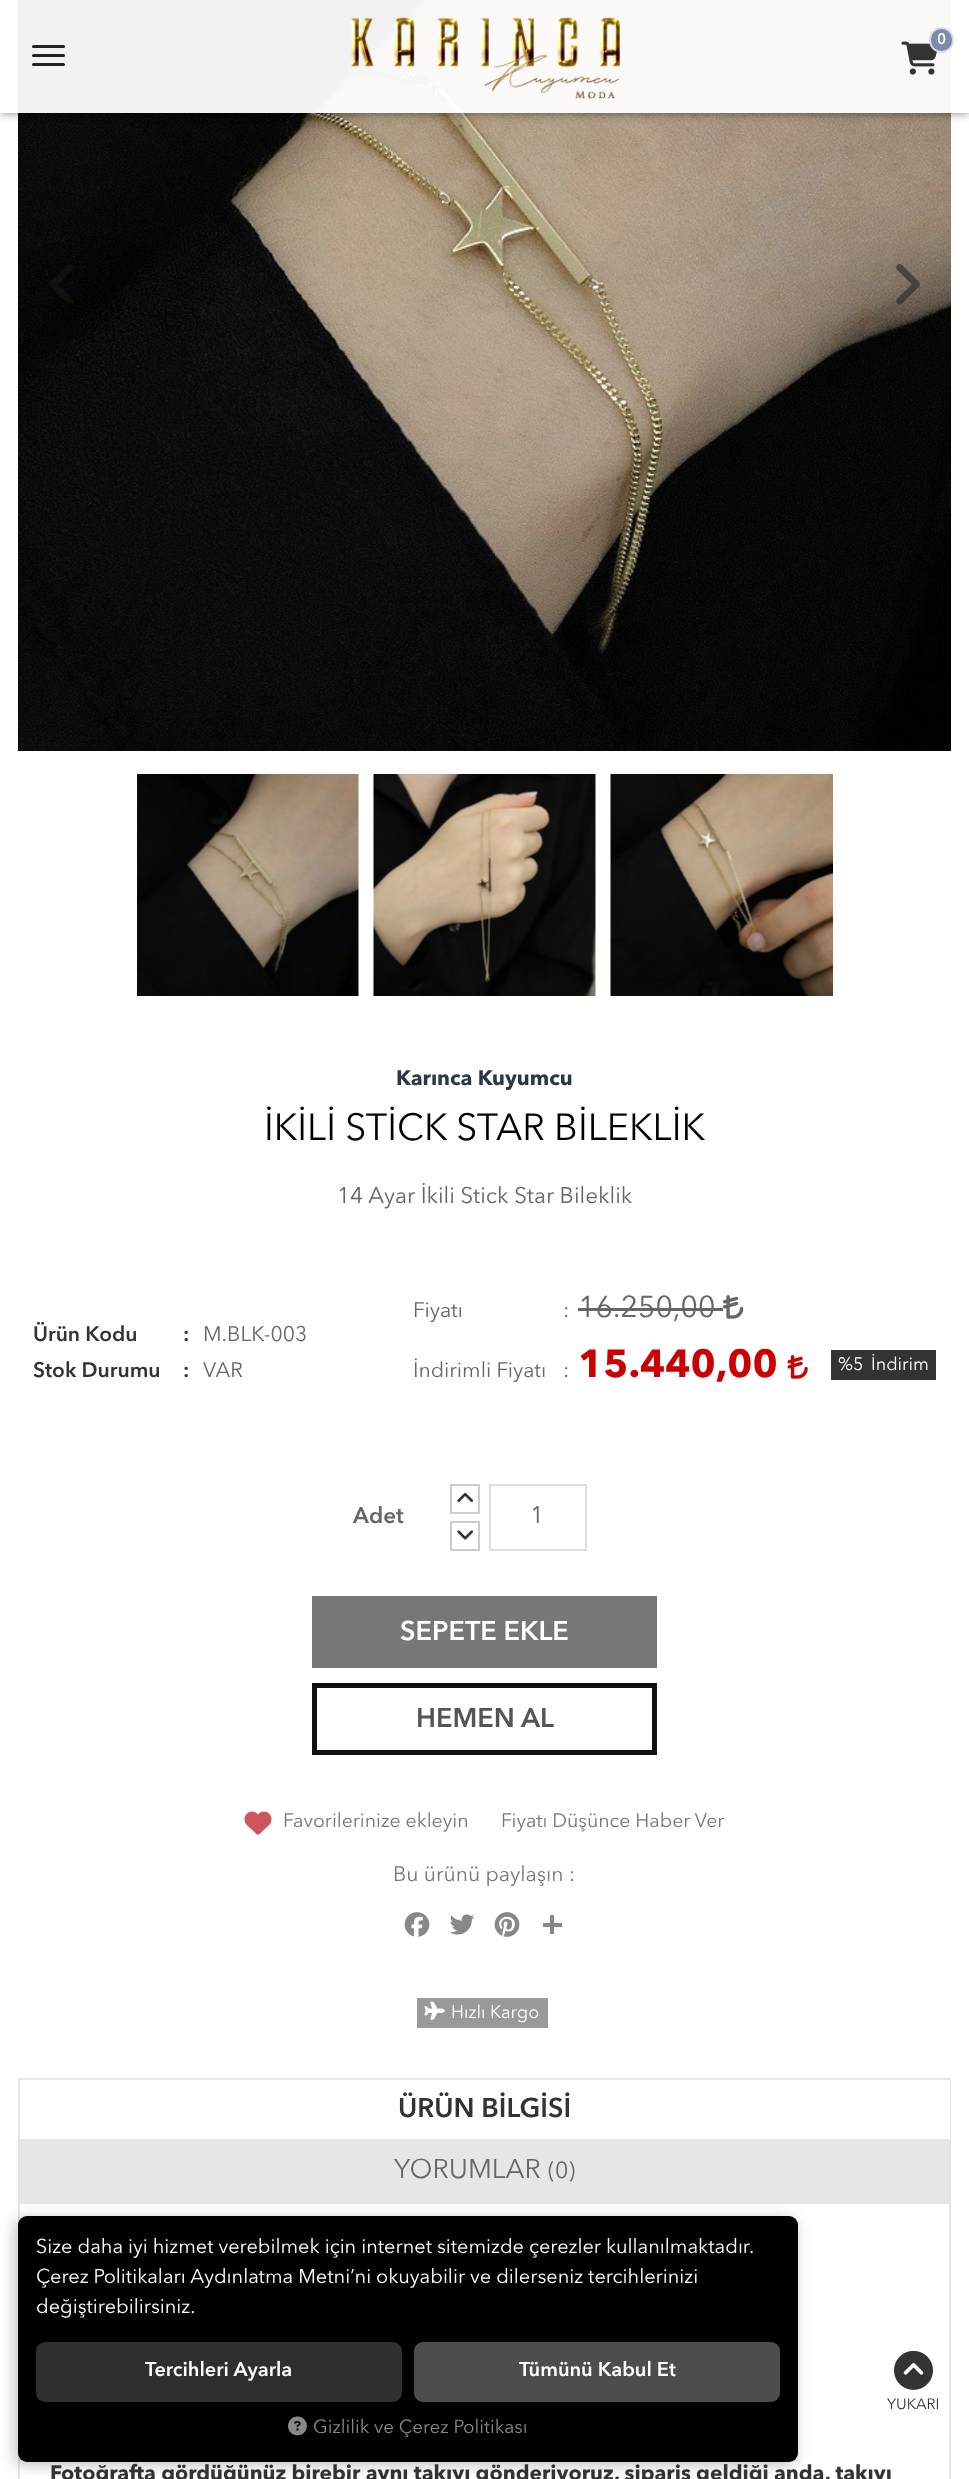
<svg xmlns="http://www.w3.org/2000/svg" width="969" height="2479">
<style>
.a{font:600 15px Avenir Next;fill:#fff}
.b{font:bold 21px Avenir Next;fill:#2c3749}
.c{font:37.5px Avenir Next;fill:#000}
.d{font:22.5px Avenir Next;fill:#666}
.e{font:600 21px Avenir Next;fill:#333}
.f{font:21px Avenir Next;fill:#666}
.g{font:30px Avenir Next;fill:#666}
.h{font:bold 39px Avenir Next;fill:#c00}
.i{font:18px Avenir Next;fill:#fff}
.j{font:600 22.5px Avenir Next;fill:#666}
.k{font:24px Avenir Next;fill:#666}
.l{font:600 27px Avenir Next;fill:#fff}
.m{font:600 27px Avenir Next;fill:#555}
.n{font:19.5px Avenir Next;fill:#777}
.o{font:21px Avenir Next;fill:#777}
.p{font:600 27px Avenir Next;fill:#333}
.q{font:27px Avenir Next;fill:#666}
.r{font:23px Avenir Next;fill:#666}
.s{font:bold 21px Avenir Next;fill:#333}
.t{font:19.95px Avenir Next;fill:#fff}
.u{font:600 19.95px Avenir Next;fill:#fff}
.v{font:18.9px Avenir Next;fill:#888}
.w{font:15px Avenir Next;fill:#333}
</style>
<defs>
<clipPath id="clip1"><path d="M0 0h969v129h-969zm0 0h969v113h-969z" clip-rule="evenodd"/></clipPath>
</defs>
<rect width="100%" height="100%" fill="#fff"/>
<image href="3.png" x="18" y="0" width="933" height="751"/>
<g clip-path="url(#clip1)">
<path fill="#00000080" filter="blur(5px)" d="M0 0h969v113H0z"/>
</g>
<path fill="#fffffff2" d="M0 0h969v113H0z"/>
<image href="1.png" x="351" y="17" width="270" height="83"/>
<image href="2.png" x="901" y="41" width="36" height="34"/>
<rect fill="#798cae" stroke="#ddd" stroke-width="2" x="930" y="28" width="23" height="24" rx="11.5"/>
<rect fill="#222" x="32" y="45" width="33" height="3" rx="1.5"/>
<rect fill="#222" x="32" y="54" width="33" height="3" rx="1.5"/>
<rect fill="#222" x="32" y="63" width="33" height="3" rx="1.5"/>
<image href="4.png" x="50" y="264" width="23" height="40"/>
<image href="5.png" x="896" y="264" width="24" height="41"/>
<image href="6.png" x="137" y="774" width="222" height="222"/>
<image href="7.png" x="373" y="774" width="223" height="222"/>
<image href="8.png" x="610" y="774" width="223" height="222"/>
<path fill="#666" d="M578 1308h145v3H578z"/>
<image href="9.png" x="723" y="1295" width="21" height="24"/>
<image href="10.png" x="787" y="1355" width="21" height="24"/>
<path fill="#333" d="M831 1350h105v30H831z"/>
<path fill="none" stroke="#ccc" stroke-width="2" d="M451 1485h28v28H451z"/>
<image href="11.png" x="457" y="1492" width="16" height="10"/>
<path fill="none" stroke="#ccc" stroke-width="2" d="M451 1522h28v28H451z"/>
<image href="12.png" x="457" y="1530" width="16" height="10"/>
<path fill="none" stroke="#ddd" stroke-width="2" d="M490 1485h96v65H490z"/>
<path fill="#777" d="M312 1596h345v72H312z"/>
<path fill="none" stroke="#111" stroke-width="5" d="M314.5 1685.5h340v67H314.5z"/>
<image href="13.png" x="244" y="1811" width="28" height="24"/>
<image href="14.png" x="404" y="1912" width="26" height="25"/>
<image href="15.png" x="449" y="1914" width="26" height="21"/>
<image href="16.png" x="494" y="1912" width="26" height="25"/>
<path fill="#888" d="M550 1915h4v19H550z"/>
<path fill="#888" d="M543 1923h19v4H543z"/>
<path fill="#999" d="M417 1998h131v30H417z"/>
<image href="17.png" x="424" y="2001" width="21" height="19"/>
<path fill="#e6e6e6" d="M18 2078h933v2H18z"/>
<path fill="#e6e6e6" d="M951 2078v62l-1-1v-60z"/>
<path fill="#e6e6e6" d="M18 2140v-62l2 1v60z"/>
<path fill="#e6e6e6" d="M18 2139h933v63H18z"/>
<path fill="none" stroke="#e6e6e6" stroke-width="2" d="M19 2203h931v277H19z"/>
<rect fill="#00000040" filter="blur(7.5px)" x="15" y="2219" width="780" height="246" rx="9"/>
<rect fill="#000" x="18" y="2216" width="780" height="246" rx="9"/>
<rect fill="#2f2f2f" x="36" y="2342" width="366" height="60" rx="9"/>
<rect fill="#4d4d4d" x="414" y="2342" width="366" height="60" rx="9"/>
<image href="18.png" x="288" y="2416" width="19" height="20"/>
<image href="19.png" x="894" y="2350" width="39" height="40"/>
<text class="a" x="937" y="44">0</text>
<text class="b" x="396" y="1085">Karınca Kuyumcu</text>
<text class="c" x="264" y="1140">İKİLİ STİCK STAR BİLEKLİK</text>
<text class="d" x="337" y="1203">14 Ayar İkili Stick Star Bileklik</text>
<text class="e" x="33" y="1341">Ürün Kodu</text>
<text class="e" x="183" y="1341">:</text>
<text class="f" x="203" y="1341">M.BLK-003</text>
<text class="e" x="33" y="1377">Stok Durumu</text>
<text class="e" x="183" y="1377">:</text>
<text class="f" x="203" y="1377">VAR</text>
<text class="f" x="413" y="1317">Fiyatı</text>
<text class="f" x="563" y="1317">:</text>
<text class="g" x="578" y="1317">16.250,00</text>
<text class="f" x="413" y="1377">İndirimli Fiyatı</text>
<text class="f" x="563" y="1377">:</text>
<text class="h" x="578" y="1377">15.440,00</text>
<text class="i" x="838" y="1370">%5</text>
<text class="i" x="871" y="1370">İndirim</text>
<text class="j" x="353" y="1523">Adet</text>
<text class="k" x="530" y="1523">1</text>
<text class="l" x="400" y="1640">SEPETE EKLE</text>
<text class="m" x="416" y="1727">HEMEN AL</text>
<text class="n" x="283" y="1827">Favorilerinize ekleyin</text>
<text class="n" x="501" y="1827">Fiyatı Düşünce Haber Ver</text>
<text class="o" x="393" y="1881">Bu ürünü paylaşın :</text>
<text class="i" x="451" y="2018">Hızlı Kargo</text>
<text class="p" x="398" y="2117">ÜRÜN BİLGİSİ</text>
<text class="q" x="394" y="2178">YORUMLAR</text>
<text class="r" x="548" y="2178">(0)</text>
<text class="s" x="50" y="2480">Fotoğrafta gördüğünüz birebir aynı takıyı gönderiyoruz, sipariş geldiği anda, takıyı</text>
<text class="t" x="36" y="2253">Size daha iyi hizmet verebilmek için internet sitemizde çerezler kullanılmaktadır.</text>
<text class="t" x="36" y="2283">Çerez Politikaları Aydınlatma Metni’ni okuyabilir ve dilerseniz tercihlerinizi</text>
<text class="t" x="36" y="2313">değiştirebilirsiniz.</text>
<text class="u" x="145" y="2376">Tercihleri Ayarla</text>
<text class="u" x="519" y="2376">Tümünü Kabul Et</text>
<text class="v" x="313" y="2433">Gizlilik ve Çerez Politikası</text>
<text class="w" x="887" y="2409">YUKARI</text>
</svg>
